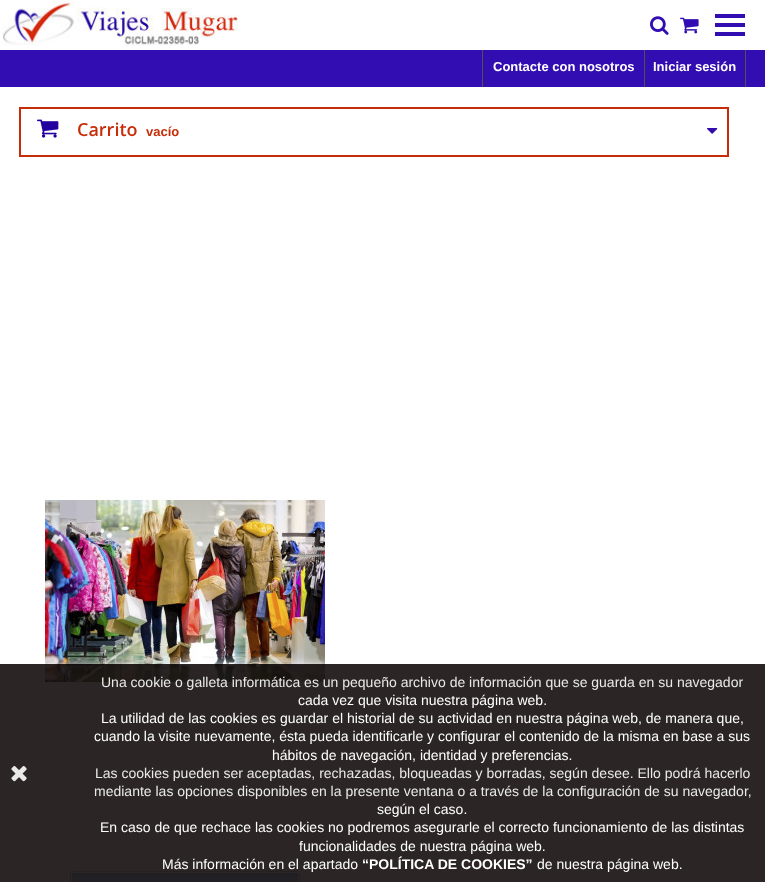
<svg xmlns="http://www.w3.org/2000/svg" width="765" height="882">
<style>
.a{font:bold 13px Liberation Sans;fill:#fff}
.b{font:600 18px Open Sans;fill:#c72d09}
.c{font:bold 13px Liberation Sans;fill:#c72d09}
.d{font:14px Liberation Sans;fill:#eae9e9}
.e{font:14px Liberation Sans;fill:#fff}
.f{font:bold 14px Liberation Sans;fill:#fff}
</style>
<defs>
<linearGradient id="g1" gradientUnits="userSpaceOnUse" x1="185" y1="873" x2="185" y2="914"><stop offset="0" stop-color="#8bc6f0"/><stop offset="1" stop-color="#ededed"/></linearGradient>
<clipPath id="clip1"><path d="M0 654h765v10H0z"/></clipPath>
</defs>
<rect width="100%" height="100%" fill="#fff"/>
<path fill="#320db2" d="M0 50h765v37H0z"/>
<path fill="#515151" d="M482 50h1v37H482z"/>
<path fill="#515151" d="M745 50h1v37H745z"/>
<path fill="#515151" d="M644 50h1v37H644z"/>
<path fill="none" stroke="#c72d09" stroke-width="2" d="M20 108h708v48H20z"/>
<image href="1.png" x="37" y="119" width="22" height="19"/>
<image href="2.png" x="707" y="128" width="11" height="6"/>
<image href="3.png" x="45" y="495" width="280" height="192"/>
<rect fill="#f4b61b" x="70" y="871" width="230" height="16" rx="5"/>
<image href="4.png" x="70" y="873" width="230" height="3"/>
<path fill="none" stroke="#cacaca" d="M72 873l3-1.5h220.5l2.5 1.5"/>
<path fill="none" stroke="#b7b7b7" d="M298 873c1 .5 1.5 2 1.5 3v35c0 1-.5 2.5-1.5 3"/>
<path fill="none" stroke="#b7b7b7" d="M72 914c-1-.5-1.5-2-1.5-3v-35c0-1 .5-2.5 1.5-3"/>
<path fill="url(#g1)" d="M72 873h226v9H72z"/>
<path fill="none" stroke="#fff" d="M71.5 872.5h227v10H71.5z"/>
<image href="5.png" x="2" y="0" width="236" height="46"/>
<image href="6.png" x="650" y="16" width="19" height="19"/>
<image href="7.png" x="680" y="17" width="19" height="17"/>
<path fill="#320db2" d="M715 32h30v4H715z"/>
<path fill="#320db2" d="M715 23h30v4H715z"/>
<path fill="#320db2" d="M715 14h30v4H715z"/>
<g clip-path="url(#clip1)">
<path fill="#ffffffe6" filter="blur(5px)" d="M0 664h765v218H0z"/>
</g>
<path fill="#140d0de6" d="M0 664h765v218H0z"/>
<image href="8.png" x="11" y="766" width="16" height="16"/>
<text class="a" x="493" y="71">Contacte con nosotros</text>
<text class="a" x="653" y="71">Iniciar sesión</text>
<text class="b" x="77" y="136">Carrito</text>
<text class="c" x="146" y="136">vacío</text>
<text class="d" x="101" y="687">Una cookie o galleta informática es un pequeño archivo de información que se guarda en su navegador</text>
<text class="e" x="298" y="705">cada vez que visita nuestra página web.</text>
<text class="e" x="101" y="723">La utilidad de las cookies es guardar el historial de su actividad en nuestra página web, de manera que,</text>
<text class="e" x="94" y="741">cuando la visite nuevamente, ésta pueda identificarle y configurar el contenido de la misma en base a sus</text>
<text class="e" x="272" y="760">hábitos de navegación, identidad y preferencias.</text>
<text class="d" x="95" y="778">Las cookies pueden ser aceptadas, rechazadas, bloqueadas y borradas, según desee. Ello podrá hacerlo</text>
<text class="d" x="94" y="796">mediante las opciones disponibles en la presente ventana o a través de la configuración de su navegador,</text>
<text class="e" x="377" y="814">según el caso.</text>
<text class="e" x="100" y="832">En caso de que rechace las cookies no podremos asegurarle el correcto funcionamiento de las distintas</text>
<text class="e" x="299" y="851">funcionalidades de nuestra página web.</text>
<text class="e" x="162" y="869">Más información en el apartado</text>
<text class="f" x="362" y="869">“POLÍTICA DE COOKIES”</text>
<text class="e" x="537" y="869">de nuestra página web.</text>
</svg>
